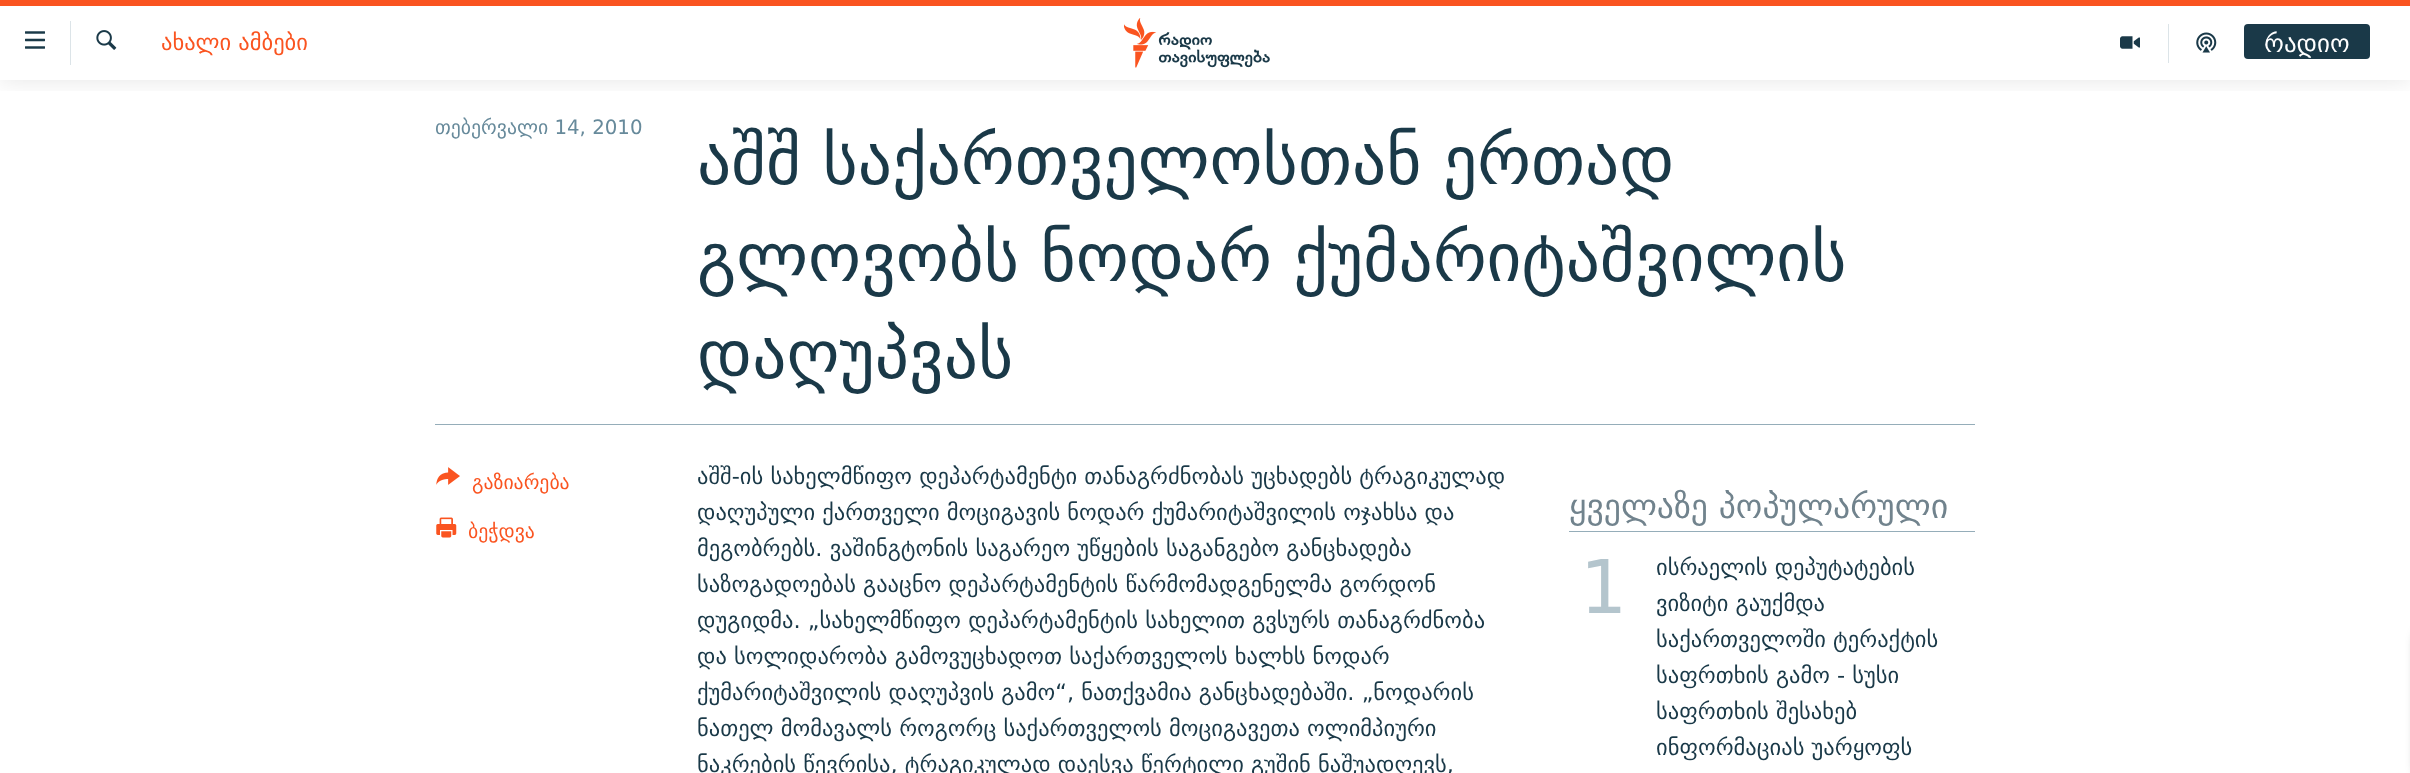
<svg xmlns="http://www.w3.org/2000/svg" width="2410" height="773">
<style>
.a{font:22.5px DejaVu Sans;fill:#fa5420}
.b{font:25px DejaVu Sans;fill:#fff}
.c{font:19.75px DejaVu Sans;fill:#678a9b}
.d{font:67.5px DejaVu Sans;fill:#1a3948}
.e{font:19.75px DejaVu Sans;fill:#fa5420}
.f{font:22.5px DejaVu Sans;fill:#1a3948}
.g{font:33.75px DejaVu Sans;fill:#71838d}
.h{font:74px DejaVu Sans;fill:#b4c5cd}
</style>
<defs>
<clipPath id="clip1"><path d="M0 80h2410v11H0z"/></clipPath>
</defs>
<rect width="100%" height="100%" fill="#fff"/>
<g clip-path="url(#clip1)">
<path fill="#0000001a" filter="blur(12.5px)" d="M0 0h2410v80H0z"/>
</g>
<path fill="#fa5420" d="M0 0h2410v6H0z"/>
<image href="1.png" x="25" y="31" width="20" height="18"/>
<path fill="#dce4e8" d="M70 21h1v44H70z"/>
<image href="2.png" x="96" y="30" width="21" height="20"/>
<image href="3.png" x="1124" y="18" width="146" height="50"/>
<path fill="#dce4e8" d="M2168 24h1v39H2168z"/>
<image href="4.png" x="2120" y="36" width="20" height="13"/>
<image href="5.png" x="2196" y="32" width="21" height="21"/>
<rect fill="#1a3948" x="2244" y="24" width="126" height="35" rx="4"/>
<path fill="#95adb9" d="M435 424h1540v1H435z"/>
<image href="6.png" x="436" y="467" width="24" height="18"/>
<image href="7.png" x="436" y="517" width="21" height="21"/>
<path fill="#95adb9" d="M1569 531h406v1H1569z"/>
<rect fill="#000000d9" filter="blur(6px)" x="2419" y="633" width="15" height="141" rx="6"/>
<text class="a" x="161" y="50">ახალი ამბები</text>
<text class="b" x="2264" y="52">რადიო</text>
<text class="c" x="435" y="134">თებერვალი 14, 2010</text>
<text class="d" x="697" y="184">აშშ საქართველოსთან ერთად</text>
<text class="d" x="697" y="281">გლოვობს ნოდარ ქუმარიტაშვილის</text>
<text class="d" x="697" y="378">დაღუპვას</text>
<text class="e" x="472" y="489">გაზიარება</text>
<text class="e" x="468" y="538">ბეჭდვა</text>
<text class="f" x="697" y="484">აშშ-ის სახელმწიფო დეპარტამენტი თანაგრძნობას უცხადებს ტრაგიკულად</text>
<text class="f" x="697" y="520">დაღუპული ქართველი მოციგავის ნოდარ ქუმარიტაშვილის ოჯახსა და</text>
<text class="f" x="697" y="556">მეგობრებს. ვაშინგტონის საგარეო უწყების საგანგებო განცხადება</text>
<text class="f" x="697" y="592">საზოგადოებას გააცნო დეპარტამენტის წარმომადგენელმა გორდონ</text>
<text class="f" x="697" y="628">დუგიდმა. „სახელმწიფო დეპარტამენტის სახელით გვსურს თანაგრძნობა</text>
<text class="f" x="697" y="664">და სოლიდარობა გამოვუცხადოთ საქართველოს ხალხს ნოდარ</text>
<text class="f" x="697" y="700">ქუმარიტაშვილის დაღუპვის გამო“, ნათქვამია განცხადებაში. „ნოდარის</text>
<text class="f" x="697" y="736">ნათელ მომავალს როგორც საქართველოს მოციგავეთა ოლიმპიური</text>
<text class="f" x="697" y="772">ნაკრების წევრისა, ტრაგიკულად დაესვა წერტილი გუშინ ნაშუადღევს,</text>
<text class="g" x="1569" y="518">ყველაზე პოპულარული</text>
<text class="h" x="1580" y="613">1</text>
<text class="f" x="1656" y="575">ისრაელის დეპუტატების</text>
<text class="f" x="1656" y="611">ვიზიტი გაუქმდა</text>
<text class="f" x="1656" y="647">საქართველოში ტერაქტის</text>
<text class="f" x="1656" y="683">საფრთხის გამო - სუსი</text>
<text class="f" x="1656" y="719">საფრთხის შესახებ</text>
<text class="f" x="1656" y="755">ინფორმაციას უარყოფს</text>
</svg>
